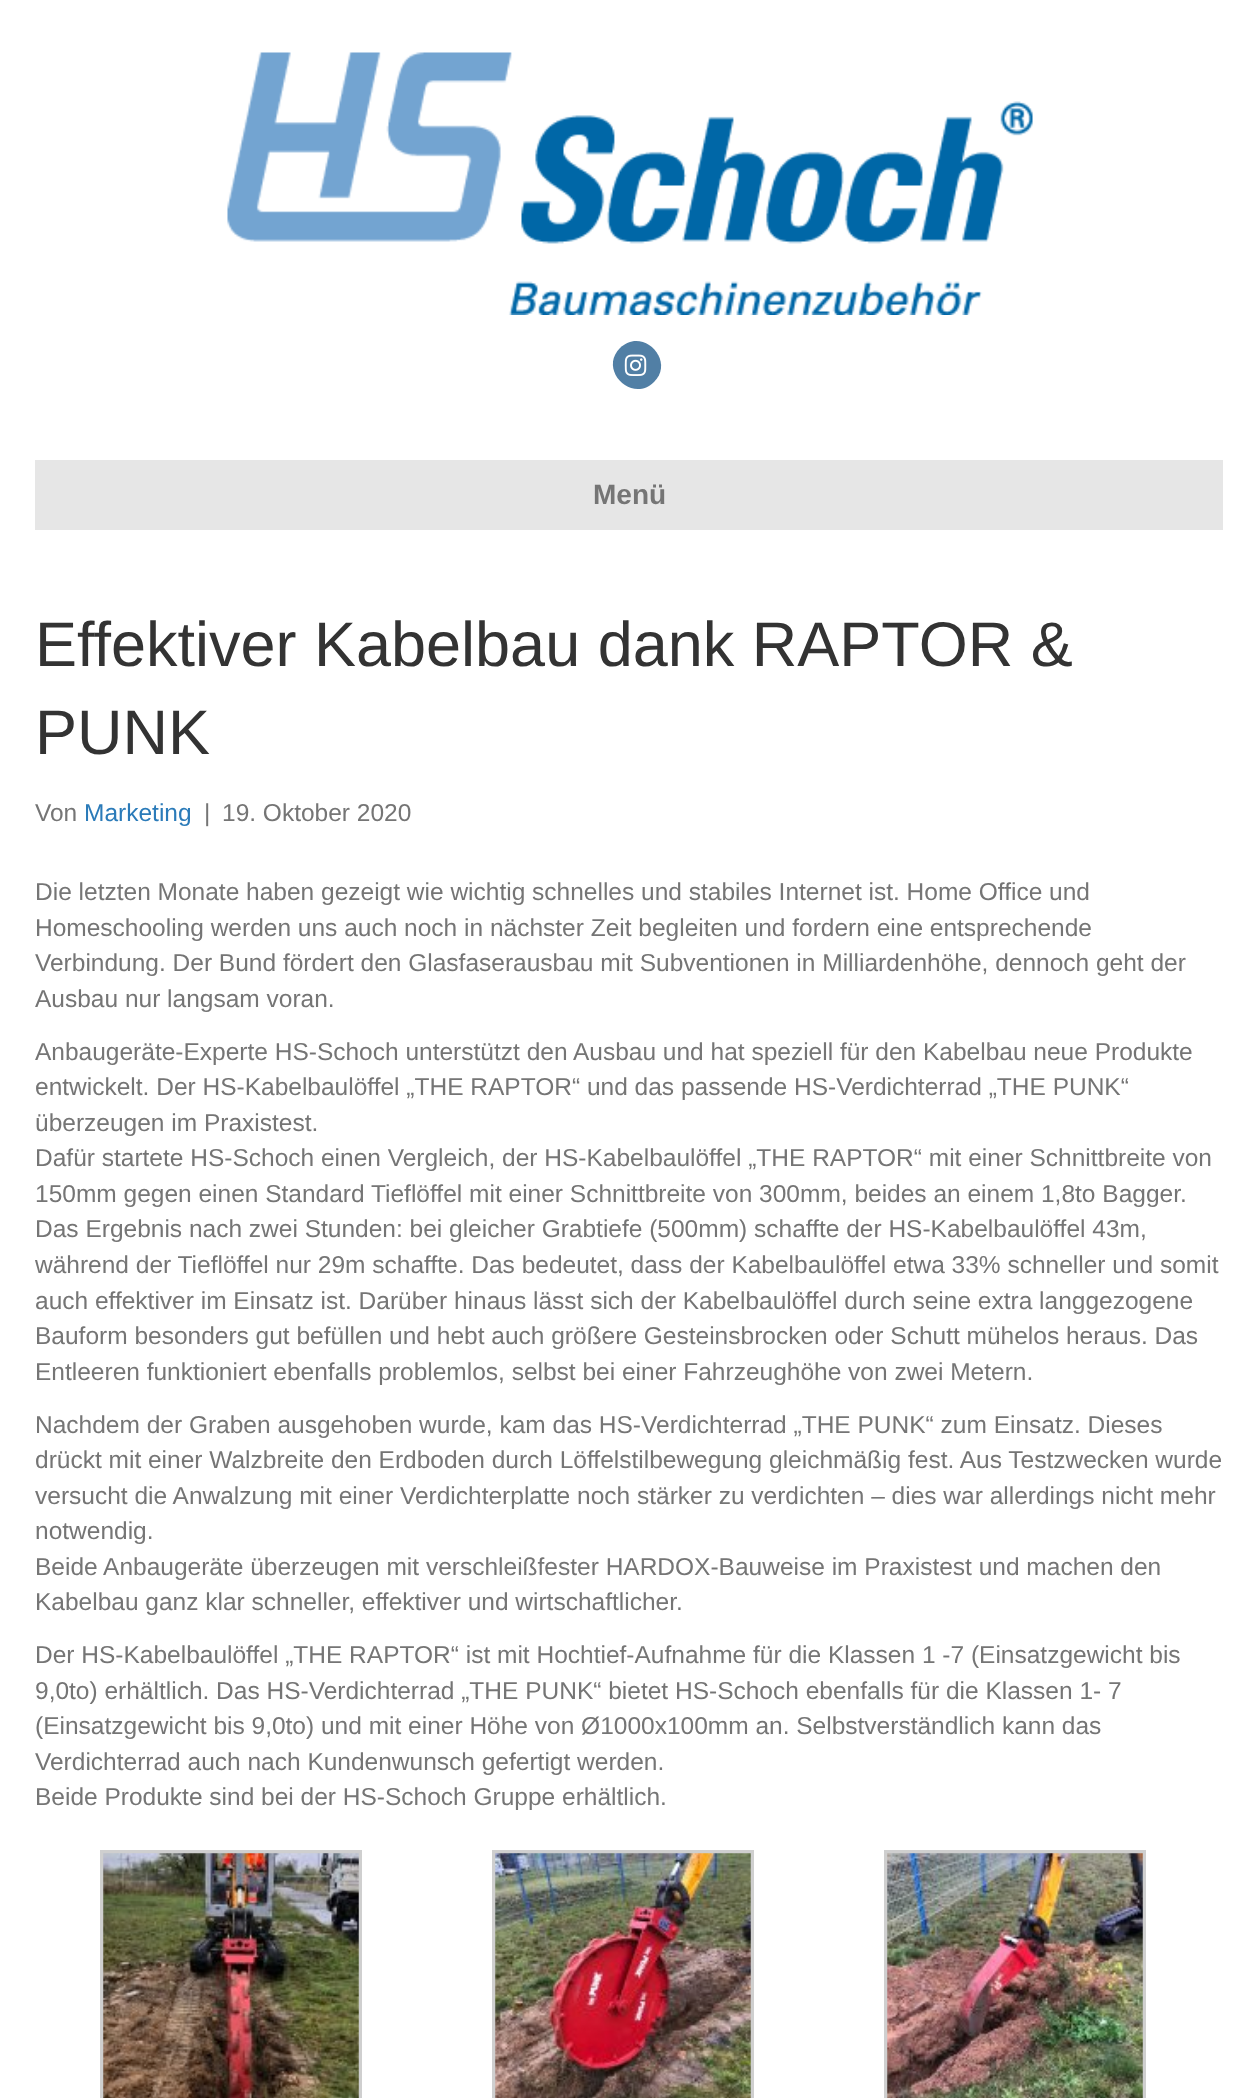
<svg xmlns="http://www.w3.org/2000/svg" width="1258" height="2098">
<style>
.a{font:bold 28px Liberation Sans;fill:#757575}
.b{font:63px Liberation Sans;fill:#333}
.c{font:24.5px Liberation Sans;fill:#757575}
.d{font:24.5px Liberation Sans;fill:#2b7bb9}
</style>
<rect width="100%" height="100%" fill="#fff"/>
<image href="1.png" x="227" y="52" width="806" height="263"/>
<path fill="#517fa5" d="M620 348c22-22 56 12 34 34c-22 22-56-12-34-34z"/>
<image href="2.png" x="624" y="354" width="23" height="22"/>
<path fill="#e6e6e6" d="M35 460h1188v70H35z"/>
<path fill="none" stroke="#cfcfcf" stroke-width="4" d="M102 1852h258v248H102z"/>
<image href="3.png" x="103" y="1853" width="256" height="245"/>
<path fill="none" stroke="#cfcfcf" stroke-width="4" d="M494 1852h258v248H494z"/>
<image href="4.png" x="495" y="1853" width="256" height="245"/>
<path fill="none" stroke="#cfcfcf" stroke-width="4" d="M886 1852h258v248H886z"/>
<image href="5.png" x="887" y="1853" width="256" height="245"/>
<text class="a" x="593" y="504">Menü</text>
<text class="b" x="35" y="666">Effektiver Kabelbau dank RAPTOR &amp;</text>
<text class="b" x="35" y="754">PUNK</text>
<text class="c" x="35" y="821">Von</text>
<text class="d" x="84" y="821">Marketing</text>
<text class="c" x="204" y="821">|</text>
<text class="c" x="222" y="821">19. Oktober 2020</text>
<text class="c" x="35" y="900">Die letzten Monate haben gezeigt wie wichtig schnelles und stabiles Internet ist. Home Office und</text>
<text class="c" x="35" y="936">Homeschooling werden uns auch noch in nächster Zeit begleiten und fordern eine entsprechende</text>
<text class="c" x="35" y="971">Verbindung. Der Bund fördert den Glasfaserausbau mit Subventionen in Milliardenhöhe, dennoch geht der</text>
<text class="c" x="35" y="1007">Ausbau nur langsam voran.</text>
<text class="c" x="35" y="1060">Anbaugeräte-Experte HS-Schoch unterstützt den Ausbau und hat speziell für den Kabelbau neue Produkte</text>
<text class="c" x="35" y="1095">entwickelt. Der HS-Kabelbaulöffel „THE RAPTOR“ und das passende HS-Verdichterrad „THE PUNK“</text>
<text class="c" x="35" y="1131">überzeugen im Praxistest.</text>
<text class="c" x="35" y="1166">Dafür startete HS-Schoch einen Vergleich, der HS-Kabelbaulöffel „THE RAPTOR“ mit einer Schnittbreite von</text>
<text class="c" x="35" y="1202">150mm gegen einen Standard Tieflöffel mit einer Schnittbreite von 300mm, beides an einem 1,8to Bagger.</text>
<text class="c" x="35" y="1237">Das Ergebnis nach zwei Stunden: bei gleicher Grabtiefe (500mm) schaffte der HS-Kabelbaulöffel 43m,</text>
<text class="c" x="35" y="1273">während der Tieflöffel nur 29m schaffte. Das bedeutet, dass der Kabelbaulöffel etwa 33% schneller und somit</text>
<text class="c" x="35" y="1309">auch effektiver im Einsatz ist. Darüber hinaus lässt sich der Kabelbaulöffel durch seine extra langgezogene</text>
<text class="c" x="35" y="1344">Bauform besonders gut befüllen und hebt auch größere Gesteinsbrocken oder Schutt mühelos heraus. Das</text>
<text class="c" x="35" y="1380">Entleeren funktioniert ebenfalls problemlos, selbst bei einer Fahrzeughöhe von zwei Metern.</text>
<text class="c" x="35" y="1433">Nachdem der Graben ausgehoben wurde, kam das HS-Verdichterrad „THE PUNK“ zum Einsatz. Dieses</text>
<text class="c" x="35" y="1468">drückt mit einer Walzbreite den Erdboden durch Löffelstilbewegung gleichmäßig fest. Aus Testzwecken wurde</text>
<text class="c" x="35" y="1504">versucht die Anwalzung mit einer Verdichterplatte noch stärker zu verdichten – dies war allerdings nicht mehr</text>
<text class="c" x="35" y="1539">notwendig.</text>
<text class="c" x="35" y="1575">Beide Anbaugeräte überzeugen mit verschleißfester HARDOX-Bauweise im Praxistest und machen den</text>
<text class="c" x="35" y="1610">Kabelbau ganz klar schneller, effektiver und wirtschaftlicher.</text>
<text class="c" x="35" y="1663">Der HS-Kabelbaulöffel „THE RAPTOR“ ist mit Hochtief-Aufnahme für die Klassen 1 -7 (Einsatzgewicht bis</text>
<text class="c" x="35" y="1699">9,0to) erhältlich. Das HS-Verdichterrad „THE PUNK“ bietet HS-Schoch ebenfalls für die Klassen 1- 7</text>
<text class="c" x="35" y="1734">(Einsatzgewicht bis 9,0to) und mit einer Höhe von Ø1000x100mm an. Selbstverständlich kann das</text>
<text class="c" x="35" y="1770">Verdichterrad auch nach Kundenwunsch gefertigt werden.</text>
<text class="c" x="35" y="1805">Beide Produkte sind bei der HS-Schoch Gruppe erhältlich.</text>
</svg>
